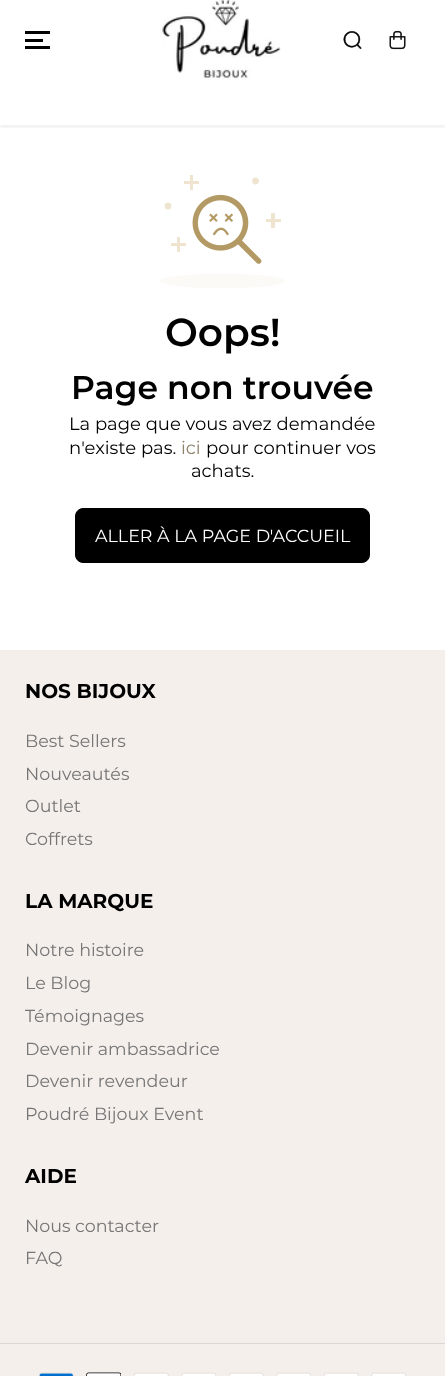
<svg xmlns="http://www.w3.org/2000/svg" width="445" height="1376">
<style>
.a{font:600 39px Montserrat;fill:#000}
.b{font:600 33px Montserrat;fill:#000}
.c{font:18px Montserrat;fill:#000}
.d{font:18px Montserrat;fill:#8f826b}
.e{font:17.5px Montserrat;fill:#fff}
.f{font:bold 20px Montserrat;fill:#000}
.g{font:17.5px Montserrat;fill:#767676}
</style>
<defs>
<clipPath id="clip1"><path d="M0 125h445v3H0z"/></clipPath>
</defs>
<rect width="100%" height="100%" fill="#fff"/>
<g clip-path="url(#clip1)">
<path fill="#0000000d" filter="blur(1px)" d="M0 -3h445v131H0z"/>
</g>
<path fill="#000" d="M25 39h18v3H25z"/>
<path fill="#000" d="M25 31h25v3H25z"/>
<path fill="#000" d="M25 46h25v3H25z"/>
<image href="1.png" x="160" y="0" width="121" height="80"/>
<image href="2.png" x="343" y="31" width="19" height="18"/>
<image href="3.png" x="389" y="30" width="17" height="20"/>
<image href="4.png" x="160" y="175" width="125" height="113"/>
<rect fill="#000" stroke="#000" x="75.5" y="508.5" width="294" height="54" rx="7.5"/>
<path fill="#f5efec" d="M0 650h445v726H0z"/>
<path fill="#dcd7d4" d="M0 1343h445v1H0z"/>
<image href="5.png" x="39" y="1372" width="35" height="4"/>
<image href="6.png" x="86" y="1372" width="35" height="4"/>
<image href="7.png" x="134" y="1372" width="35" height="4"/>
<image href="8.png" x="181" y="1372" width="35" height="4"/>
<image href="7.png" x="229" y="1372" width="35" height="4"/>
<image href="8.png" x="276" y="1372" width="35" height="4"/>
<image href="7.png" x="324" y="1372" width="35" height="4"/>
<image href="8.png" x="371" y="1372" width="35" height="4"/>
<text class="a" x="165" y="346">Oops!</text>
<text class="b" x="71" y="399">Page non trouvée</text>
<text class="c" x="69" y="430">La page que vous avez demandée</text>
<text class="c" x="69" y="454">n'existe pas.</text>
<text class="d" x="181" y="454">ici</text>
<text class="c" x="206" y="454">pour continuer vos</text>
<text class="c" x="191" y="477">achats.</text>
<text class="e" x="95" y="542">ALLER À LA PAGE D'ACCUEIL</text>
<text class="f" x="25" y="698">NOS BIJOUX</text>
<text class="g" x="25" y="747">Best Sellers</text>
<text class="g" x="25" y="780">Nouveautés</text>
<text class="g" x="25" y="812">Outlet</text>
<text class="g" x="25" y="845">Coffrets</text>
<text class="f" x="25" y="908">LA MARQUE</text>
<text class="g" x="25" y="956">Notre histoire</text>
<text class="g" x="25" y="989">Le Blog</text>
<text class="g" x="25" y="1022">Témoignages</text>
<text class="g" x="25" y="1055">Devenir ambassadrice</text>
<text class="g" x="25" y="1087">Devenir revendeur</text>
<text class="g" x="25" y="1120">Poudré Bijoux Event</text>
<text class="f" x="25" y="1183">AIDE</text>
<text class="g" x="25" y="1232">Nous contacter</text>
<text class="g" x="25" y="1264">FAQ</text>
</svg>
